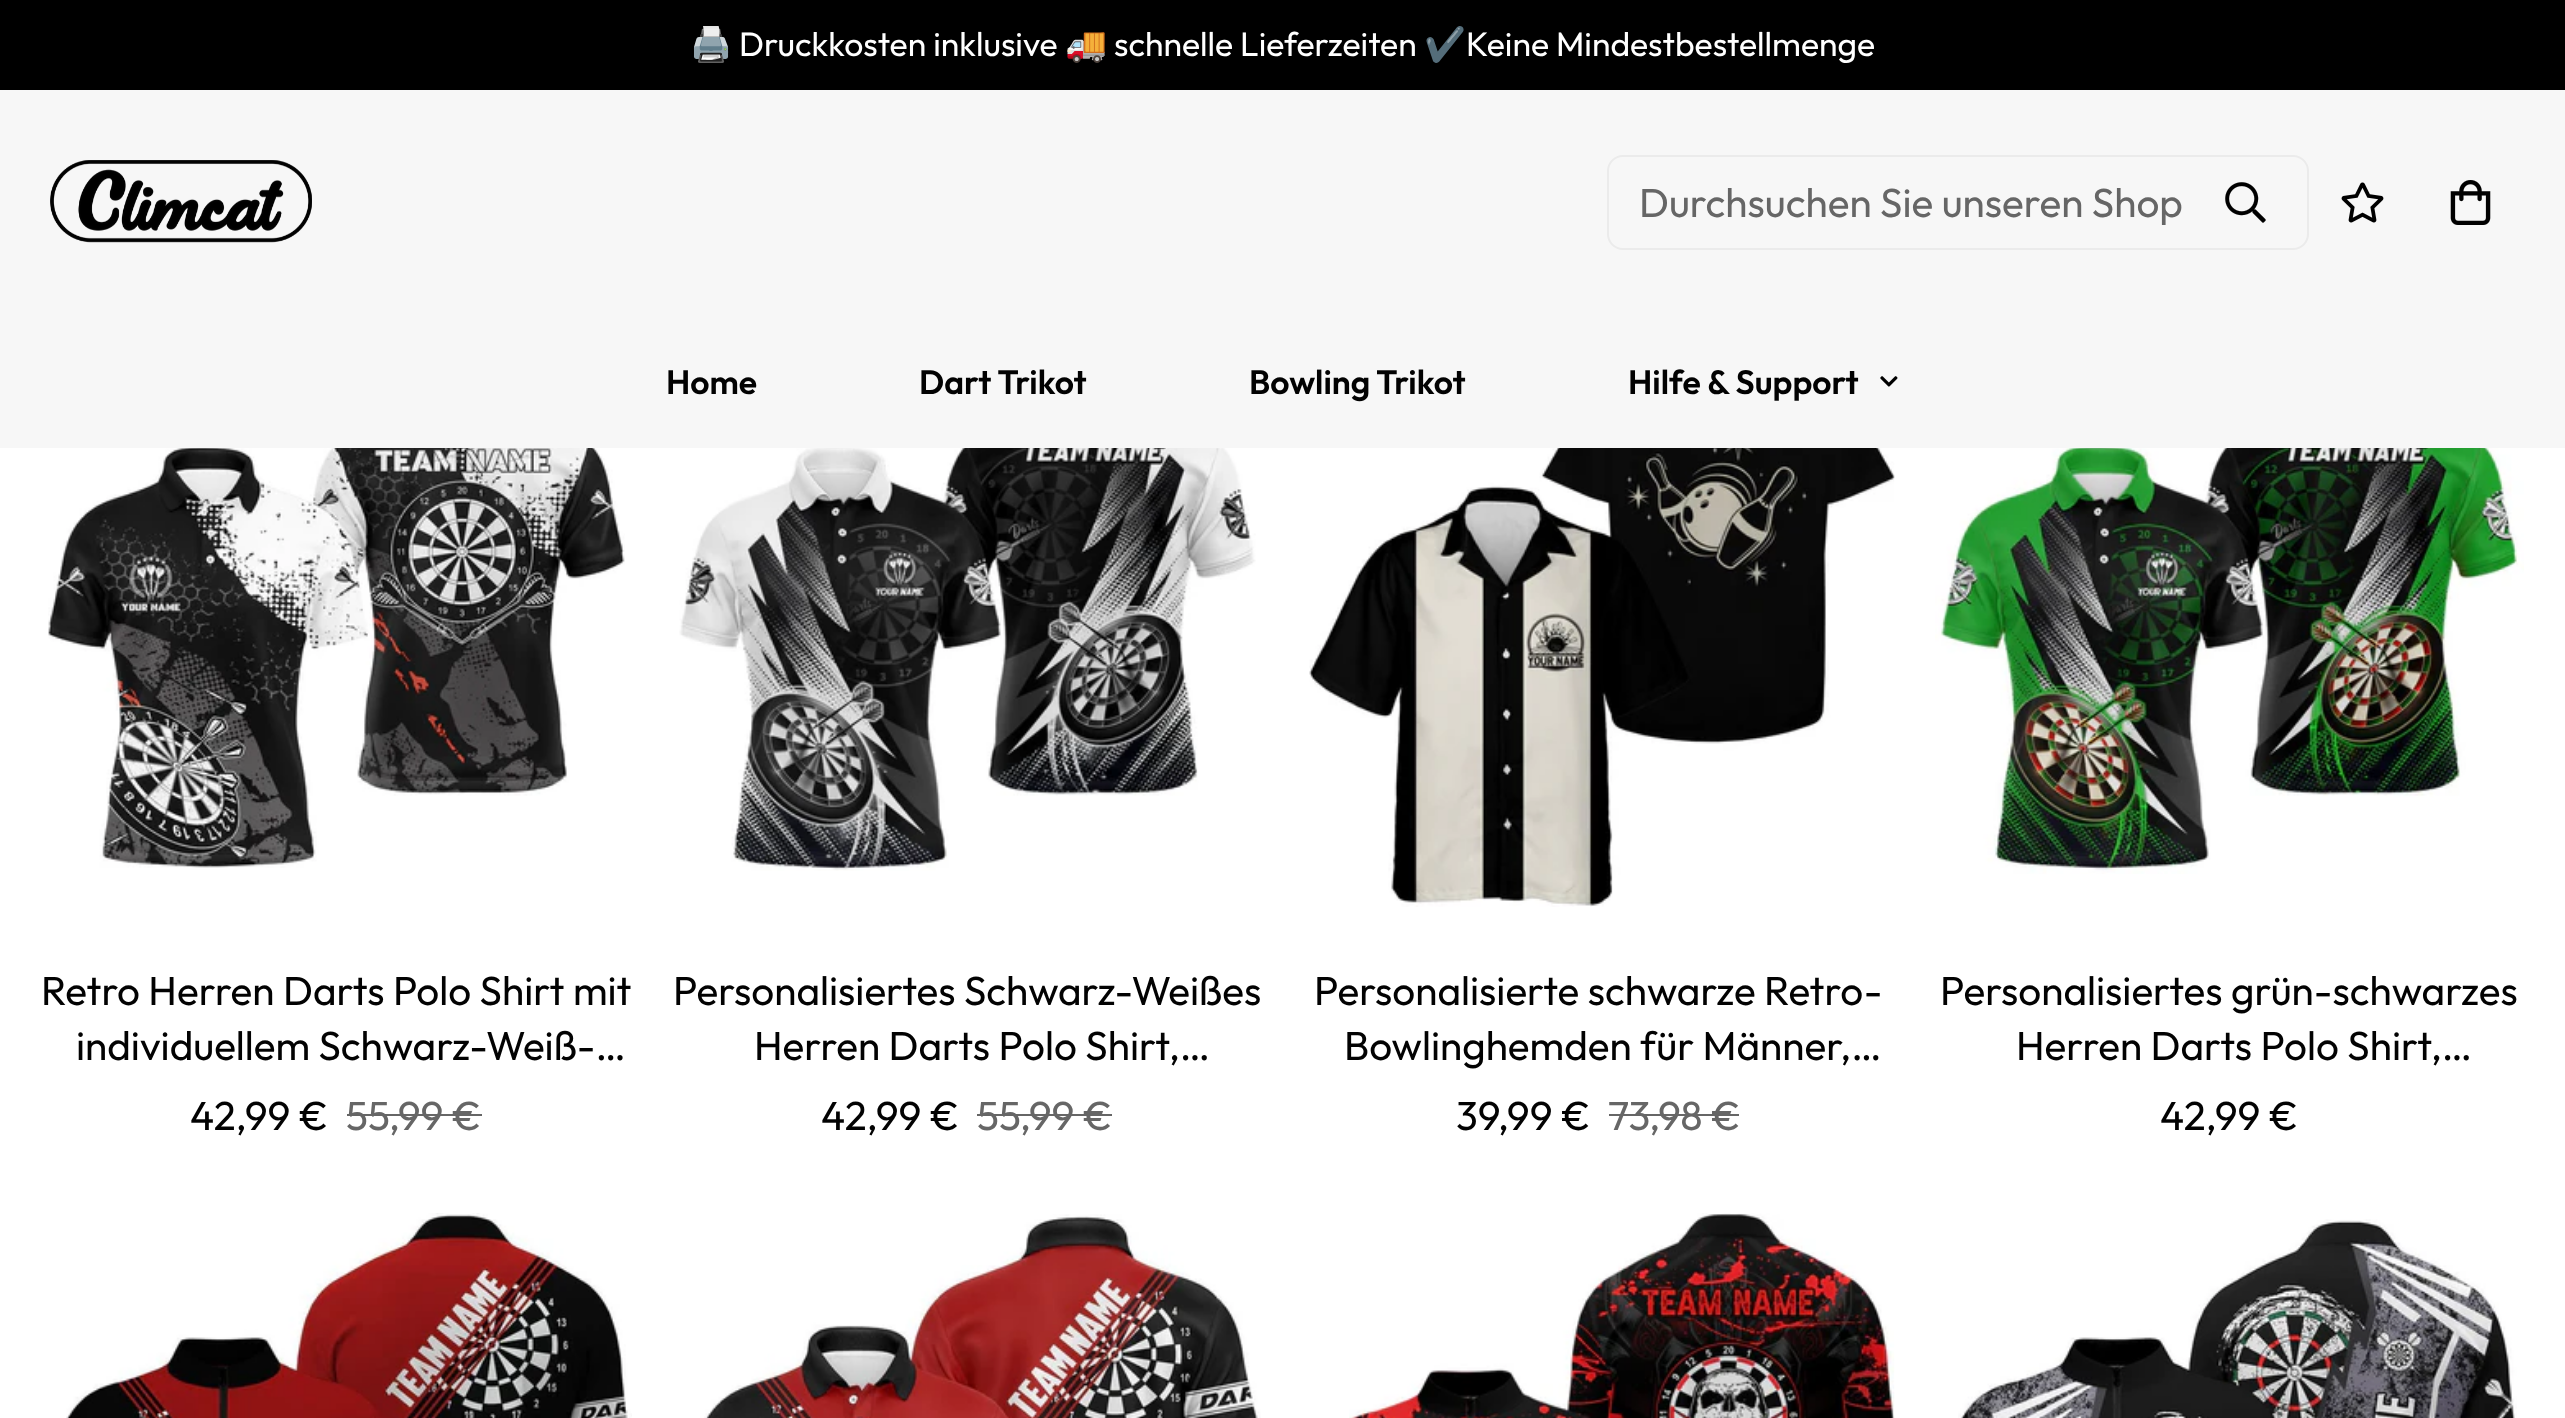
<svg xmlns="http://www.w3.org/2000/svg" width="2565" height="1418">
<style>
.a{font:33.75px Noto Color Emoji;fill:#fff}
.b{font:33.75px Outfit;fill:#fff}
.c{font:40.5px Outfit;fill:#666}
.d{font:600 33.75px Outfit;fill:#020202}
.e{font:40.5px Outfit;fill:#020202}
</style>
<rect width="100%" height="100%" fill="#fff"/>
<path fill="#000" d="M0 0h2565v90H0z"/>
<path fill="#f7f7f7" d="M0 90h2565v358H0z"/>
<image href="1.png" x="50" y="160" width="262" height="83"/>
<rect fill="none" stroke="#ebebeb" stroke-width="2" x="1608" y="156" width="700" height="93" rx="15"/>
<image href="2.png" x="2225" y="182" width="41" height="41"/>
<image href="3.png" x="2341" y="182" width="43" height="41"/>
<image href="4.png" x="2450" y="180" width="41" height="45"/>
<image href="5.png" x="1880" y="376" width="18" height="11"/>
<image href="6.png" x="48" y="448" width="577" height="420"/>
<path fill="#666" d="M347 1114h135v2H347z"/>
<image href="7.png" x="679" y="448" width="577" height="423"/>
<path fill="#666" d="M977 1114h135v2H977z"/>
<image href="8.png" x="1309" y="448" width="586" height="459"/>
<path fill="#666" d="M1609 1114h130v2H1609z"/>
<image href="9.png" x="1935" y="448" width="589" height="426"/>
<image href="10.png" x="66" y="1213" width="566" height="205"/>
<image href="11.png" x="704" y="1214" width="557" height="204"/>
<image href="12.png" x="1349" y="1213" width="546" height="205"/>
<image href="13.png" x="1958" y="1219" width="559" height="199"/>
<text class="a" x="690" y="56">🖨</text>
<text class="b" x="739" y="56">Druckkosten inklusive</text>
<text class="a" x="1065" y="56">🚚</text>
<text class="b" x="1114" y="56">schnelle Lieferzeiten</text>
<text class="a" x="1424" y="56">✔️</text>
<text class="b" x="1466" y="56">Keine Mindestbestellmenge</text>
<text class="c" x="1639" y="217">Durchsuchen Sie unseren Shop</text>
<text class="d" x="666" y="394">Home</text>
<text class="d" x="919" y="394">Dart Trikot</text>
<text class="d" x="1249" y="394">Bowling Trikot</text>
<text class="d" x="1628" y="394">Hilfe &amp; Support</text>
<text class="e" x="41" y="1005">Retro Herren Darts Polo Shirt mit</text>
<text class="e" x="76" y="1060">individuellem Schwarz-Weiß-…</text>
<text class="e" x="190" y="1130">42,99 €</text>
<text class="c" x="346" y="1130">55,99 €</text>
<text class="e" x="673" y="1005">Personalisiertes Schwarz-Weißes</text>
<text class="e" x="754" y="1060">Herren Darts Polo Shirt,…</text>
<text class="e" x="821" y="1130">42,99 €</text>
<text class="c" x="977" y="1130">55,99 €</text>
<text class="e" x="1314" y="1005">Personalisierte schwarze Retro-</text>
<text class="e" x="1344" y="1060">Bowlinghemden für Männer,…</text>
<text class="e" x="1456" y="1130">39,99 €</text>
<text class="c" x="1608" y="1130">73,98 €</text>
<text class="e" x="1940" y="1005">Personalisiertes grün-schwarzes</text>
<text class="e" x="2016" y="1060">Herren Darts Polo Shirt,…</text>
<text class="e" x="2160" y="1130">42,99 €</text>
</svg>
